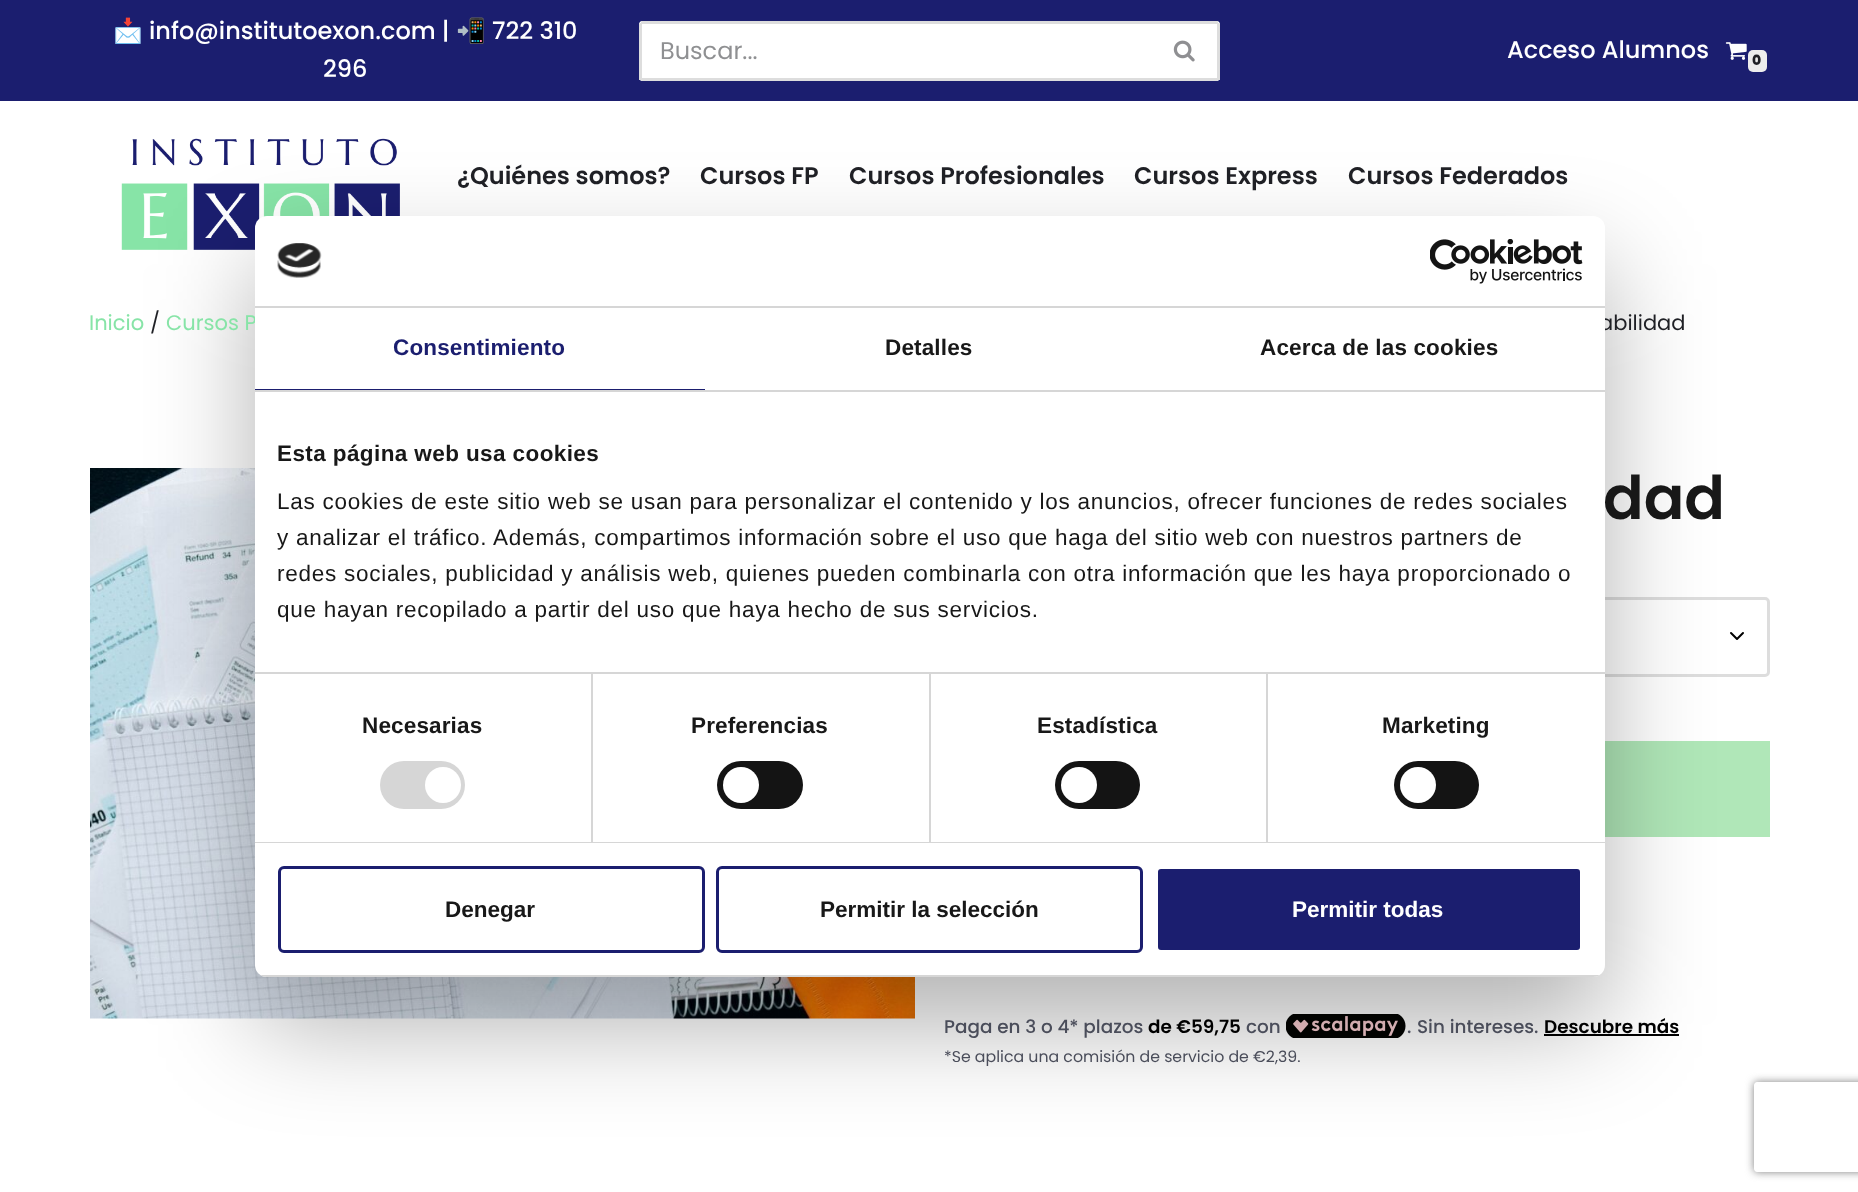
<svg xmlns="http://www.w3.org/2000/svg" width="1858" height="1192">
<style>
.a{font:24px Noto Color Emoji;fill:#fff}
.b{font:500 24px Poppins;fill:#fff}
.c{font:24px Poppins;fill:#8f9092}
.d{font:800 14px Poppins;fill:#1f2025}
.e{font:600 24px Poppins;fill:#1f2025}
.f{font:21px Poppins;fill:#87e4a7}
.g{font:21px Poppins;fill:#1f2025}
.h{font:600 60px Poppins;fill:#181818}
.i{font:500 18.4px Poppins;fill:#4a4d5a}
.j{font:600 18.4px Poppins;fill:#000}
.k{font:15.75px Poppins;fill:#4a4d5a}
.l{font:bold 22.5px Liberation Sans;letter-spacing:0.15px;fill:#1b1e6f}
.m{font:bold 22.5px Liberation Sans;letter-spacing:0.15px;fill:#181818}
.n{font:bold 22.5px Liberation Sans;letter-spacing:0.4px;fill:#181818}
.o{font:22.5px Liberation Sans;letter-spacing:0.75px;fill:#181818}
.p{font:bold 22.5px Liberation Sans;fill:#181818}
.q{font:bold 22.5px Liberation Sans;fill:#fff}
</style>
<defs>
<clipPath id="clip1"><path d="M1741 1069h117v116h-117zm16 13h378c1.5 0 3 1.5 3 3v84c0 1.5-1.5 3-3 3h-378c-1.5 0-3-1.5-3-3v-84c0-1.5 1.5-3 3-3z" clip-rule="evenodd"/></clipPath>
<clipPath id="clip2"><rect x="255" y="216" width="1350" height="761" rx="12"/></clipPath>
</defs>
<rect width="100%" height="100%" fill="#fff"/>
<path fill="#1b1e6f" d="M0 0h1858v101H0z"/>
<path fill="#fff" d="M642 21h510v60h-510c-1.5 0-3-1.5-3-3v-54c0-1.5 1.5-3 3-3z"/>
<path fill="#ddd" d="M641 21h511v3H641z"/>
<path fill="#ddd" d="M641 78h511v3H641z"/>
<path fill="#ddd" d="M639 23h3v57H639z"/>
<path fill="#fff" d="M1152 21h65c1.5 0 3 1.5 3 3v54c0 1.5-1.5 3-3 3h-65z"/>
<path fill="#ddd" d="M1152 21h66v3H1152z"/>
<path fill="#ddd" d="M1217 23h3v57H1217z"/>
<path fill="#ddd" d="M1152 78h66v3H1152z"/>
<image href="1.png" x="1173" y="40" width="22" height="22"/>
<image href="2.png" x="1725" y="42" width="22" height="18"/>
<rect fill="#ededed" x="1748" y="50" width="19" height="22" rx="5"/>
<image href="3.png" x="121" y="138" width="279" height="112"/>
<image href="4.png" x="90" y="468" width="825" height="551"/>
<path fill="none" stroke="#000" stroke-width="2" stroke-linecap="round" stroke-linejoin="round" d="M1731 633l6 6l6-6"/>
<rect fill="none" stroke="#ddd" stroke-width="3" x="946.5" y="598.5" width="822" height="77" rx="3.5"/>
<path fill="#b0e7b8" d="M1605 741h165v96H1605z"/>
<image href="5.png" x="1286" y="1014" width="120" height="24"/>
<path fill="#000" d="M1544 1034h135v2H1544z"/>
<g clip-path="url(#clip1)">
<rect fill="#808080" filter="blur(4px)" x="1754" y="1082" width="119" height="90" rx="3"/>
</g>
<rect fill="#0000004d" filter="blur(51px)" x="255" y="264" width="1350" height="761" rx="12"/>
<text class="a" x="113" y="39">📩</text>
<text class="b" x="149" y="39">info@institutoexon.com |</text>
<text class="a" x="456" y="39">📲</text>
<text class="b" x="492" y="39">722 310</text>
<text class="b" x="323" y="77">296</text>
<text class="c" x="660" y="59">Buscar...</text>
<text class="b" x="1507" y="58">Acceso Alumnos</text>
<text class="d" x="1752" y="65">0</text>
<text class="e" x="457" y="184">¿Quiénes somos?</text>
<text class="e" x="700" y="184">Cursos FP</text>
<text class="e" x="849" y="184">Cursos Profesionales</text>
<text class="e" x="1134" y="184">Cursos Express</text>
<text class="e" x="1348" y="184">Cursos Federados</text>
<text class="f" x="89" y="330">Inicio</text>
<text class="g" x="150" y="330">/</text>
<text class="f" x="166" y="330">Cursos P</text>
<text class="g" x="1599" y="330">abilidad</text>
<text class="h" x="1603" y="519">dad</text>
<text class="i" x="944" y="1033">Paga en 3 o 4* plazos</text>
<text class="j" x="1148" y="1033">de €59,75</text>
<text class="i" x="1246" y="1033">con</text>
<text class="i" x="1407" y="1033">.</text>
<text class="i" x="1417" y="1033">Sin intereses.</text>
<text class="j" x="1544" y="1033">Descubre más</text>
<text class="k" x="944" y="1062">*Se aplica una comisión de servicio de €2,39.</text>
<rect fill="#fff" x="255" y="216" width="1350" height="761" rx="12"/>
<path fill="#d6d6d6" d="M255 306h1350v2H255z"/>
<image href="6.png" x="277" y="243" width="45" height="35"/>
<image href="7.png" x="1430" y="239" width="153" height="45"/>
<path fill="#d6d6d6" d="M255 390h1350v2H255z"/>
<path fill="#1b1e6f" d="M255 389h450v1H255z"/>
<text class="l" x="393" y="355">Consentimiento</text>
<text class="m" x="885" y="355">Detalles</text>
<text class="m" x="1260" y="355">Acerca de las cookies</text>
<path fill="#d6d6d6" d="M255 672h1350v2H255z"/>
<text class="n" x="277" y="461">Esta página web usa cookies</text>
<text class="o" x="277" y="509">Las cookies de este sitio web se usan para personalizar el contenido y los anuncios, ofrecer funciones de redes sociales</text>
<text class="o" x="277" y="545">y analizar el tráfico. Además, compartimos información sobre el uso que haga del sitio web con nuestros partners de</text>
<text class="o" x="277" y="581">redes sociales, publicidad y análisis web, quienes pueden combinarla con otra información que les haya proporcionado o</text>
<text class="o" x="277" y="617">que hayan recopilado a partir del uso que haya hecho de sus servicios.</text>
<path fill="#d6d6d6" d="M255 842h1350v1H255z"/>
<path fill="#d6d6d6" d="M591 674h2v168H591z"/>
<text class="m" x="362" y="733">Necesarias</text>
<rect fill="#d6d6d6" x="380" y="761" width="85" height="48" rx="24"/>
<circle fill="#fff" cx="443" cy="785" r="18"/>
<path fill="#d6d6d6" d="M929 674h2v168H929z"/>
<text class="m" x="691" y="733">Preferencias</text>
<rect fill="#141414" x="717" y="761" width="86" height="48" rx="24"/>
<circle fill="#fff" cx="741" cy="785" r="18"/>
<path fill="#d6d6d6" d="M1266 674h2v168H1266z"/>
<text class="m" x="1037" y="733">Estadística</text>
<rect fill="#141414" x="1055" y="761" width="85" height="48" rx="24"/>
<circle fill="#fff" cx="1079" cy="785" r="18"/>
<text class="m" x="1382" y="733">Marketing</text>
<rect fill="#141414" x="1394" y="761" width="85" height="48" rx="24"/>
<circle fill="#fff" cx="1418" cy="785" r="18"/>
<g clip-path="url(#clip2)">
<path fill="#d6d6d6" d="M255 975h1350v2H255z"/>
</g>
<rect fill="none" stroke="#1b1e6f" stroke-width="3" x="279.5" y="867.5" width="424" height="84" rx="4.5"/>
<text class="p" x="445" y="917">Denegar</text>
<rect fill="none" stroke="#1b1e6f" stroke-width="3" x="717.5" y="867.5" width="424" height="84" rx="4.5"/>
<text class="p" x="820" y="917">Permitir la selección</text>
<rect fill="#1b1e6f" stroke="#fff" stroke-width="3" x="1156.5" y="867.5" width="425" height="84" rx="4.5"/>
<text class="q" x="1292" y="917">Permitir todas</text>
</svg>
